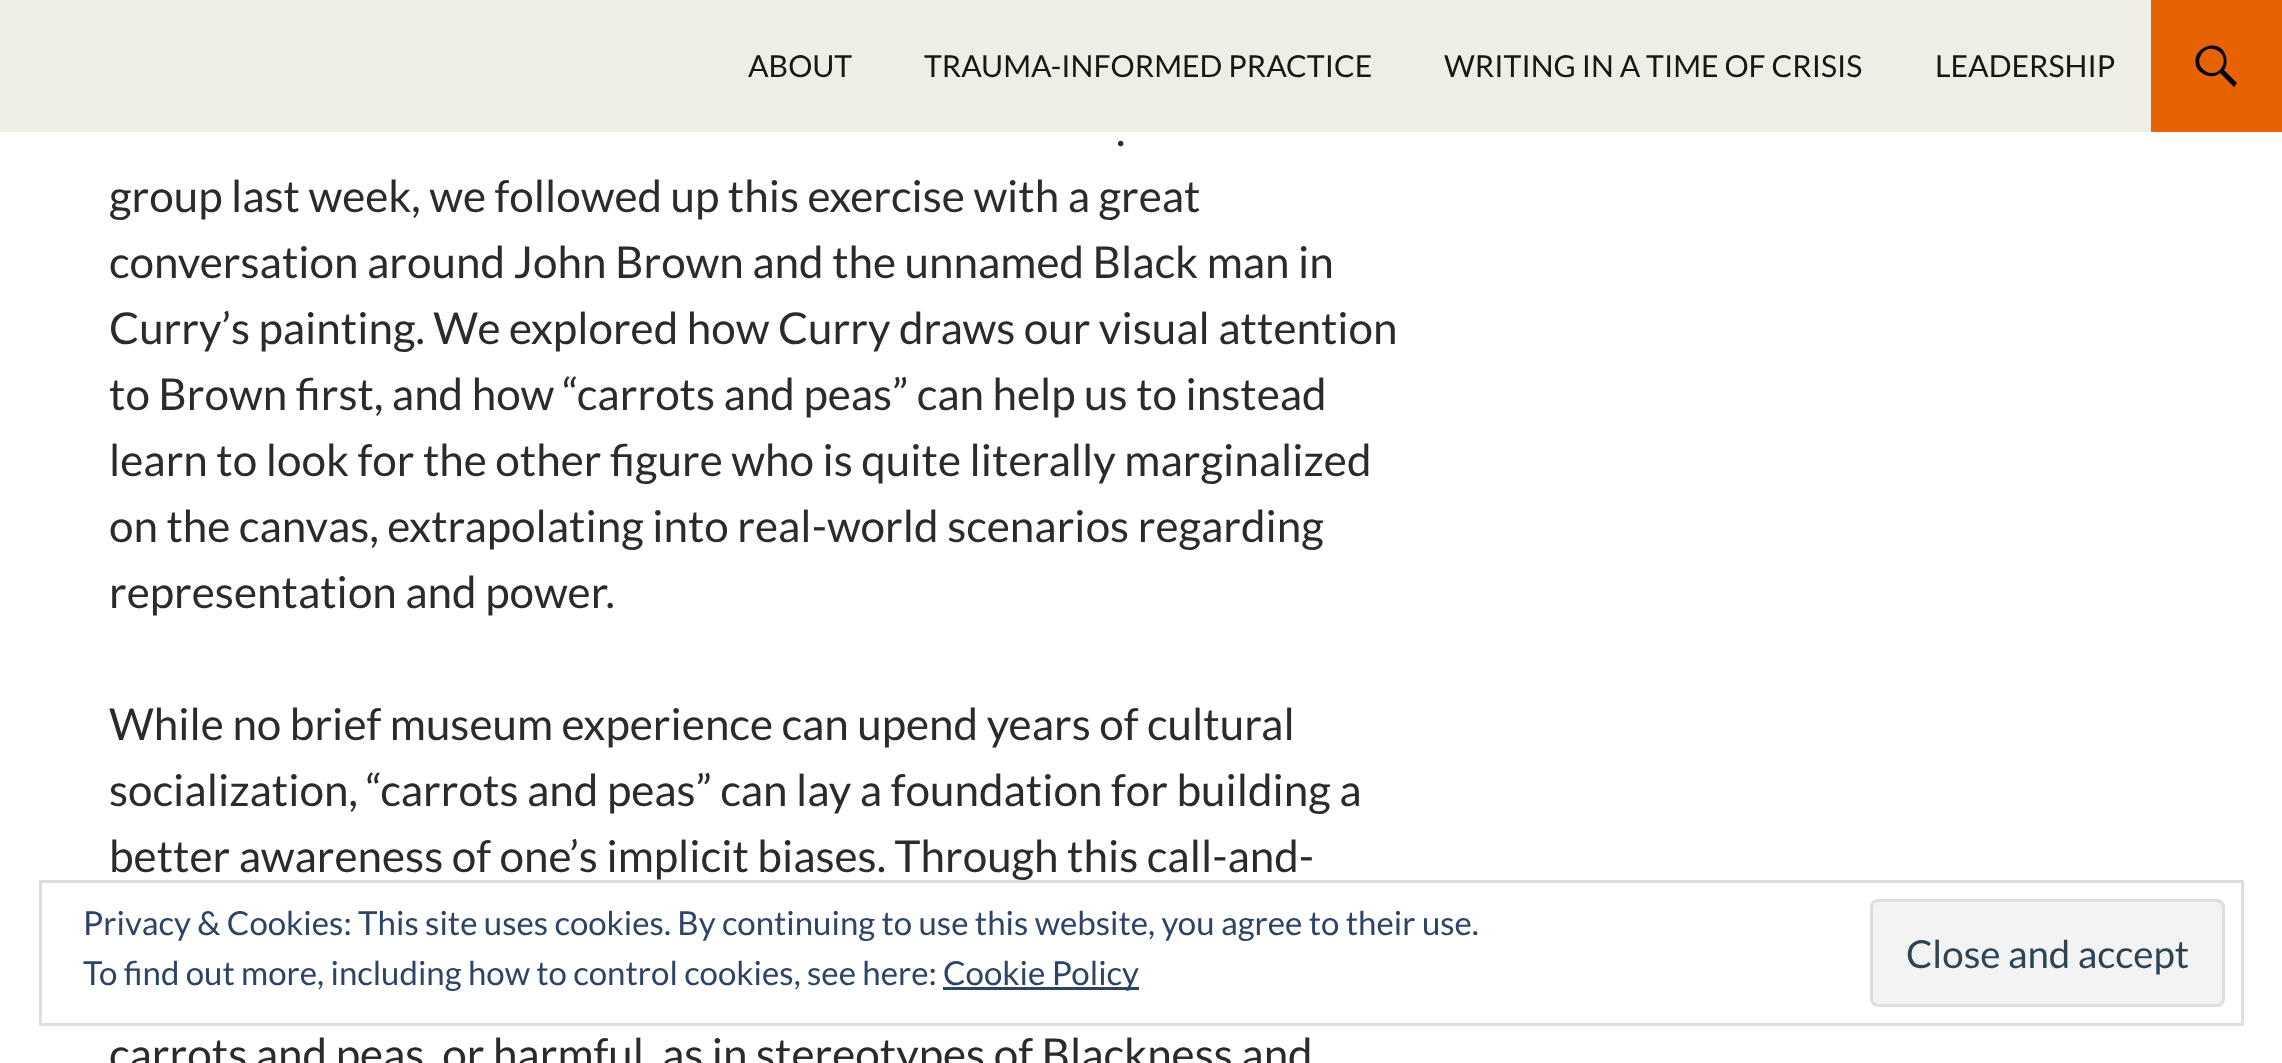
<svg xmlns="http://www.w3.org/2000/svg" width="2282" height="1063">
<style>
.a{font:30.25px Lato;fill:#181810}
.b{font:44px Lato;fill:#2b2b2b}
.c{font:33px Lato;fill:#2e4467}
.d{font:38.5px Lato;fill:#2e4453}
</style>
<rect width="100%" height="100%" fill="#fff"/>
<path fill="#eeeee6" d="M0 0h2151v132H0z"/>
<path fill="#e76203" d="M2151 0h131v132H2151z"/>
<path fill="#000" d="M2237 83l-3 4l-14-14c-7 6-18 3-23-5c-9-20 24-33 29-11c1 4 1 9-2 13zm-36-28c-8 13 13 26 21 12c8-14-13-26-21-12z"/>
<path fill="none" stroke="#dedede" stroke-width="3" d="M40.5 881.5h2202v143H40.5z"/>
<path fill="#2e4467" d="M943 987h196v3H943z"/>
<rect fill="#f3f3f3" stroke="#dedede" stroke-width="3" x="1871.5" y="900.5" width="352" height="105" rx="6.5"/>
<text class="a" x="748" y="77">ABOUT</text>
<text class="a" x="924" y="77">TRAUMA-INFORMED PRACTICE</text>
<text class="a" x="1444" y="77">WRITING IN A TIME OF CRISIS</text>
<text class="a" x="1935" y="77">LEADERSHIP</text>
<text class="b" x="1116" y="146">.</text>
<text class="b" x="109" y="212">group last week, we followed up this exercise with a great</text>
<text class="b" x="109" y="278">conversation around John Brown and the unnamed Black man in</text>
<text class="b" x="109" y="344">Curry’s painting. We explored how Curry draws our visual attention</text>
<text class="b" x="109" y="410">to Brown first, and how “carrots and peas” can help us to instead</text>
<text class="b" x="109" y="476">learn to look for the other figure who is quite literally marginalized</text>
<text class="b" x="109" y="542">on the canvas, extrapolating into real-world scenarios regarding</text>
<text class="b" x="109" y="608">representation and power.</text>
<text class="b" x="109" y="740">While no brief museum experience can upend years of cultural</text>
<text class="b" x="109" y="806">socialization, “carrots and peas” can lay a foundation for building a</text>
<text class="b" x="109" y="872">better awareness of one’s implicit biases. Through this call-and-</text>
<text class="b" x="109" y="1070">carrots and peas, or harmful, as in stereotypes of Blackness and</text>
<text class="c" x="83" y="935">Privacy &amp; Cookies: This site uses cookies. By continuing to use this website, you agree to their use.</text>
<text class="c" x="83" y="985">To find out more, including how to control cookies, see here:</text>
<text class="c" x="943" y="985">Cookie Policy</text>
<text class="d" x="1906" y="968">Close and accept</text>
</svg>
